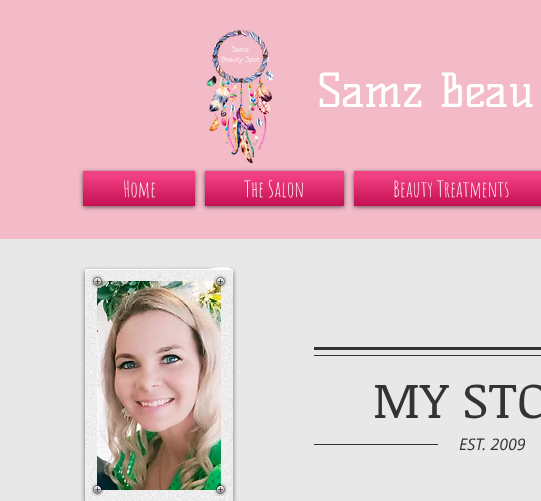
<svg xmlns="http://www.w3.org/2000/svg" width="541" height="501">
<style>
.a{font:46px Kelly Slab;fill:#fff}
.b{font:22px Amatic SC;fill:#fff}
.c{font:50px Noticia Text;letter-spacing:0.5px;fill:#333}
.d{font:italic 16px Open Sans;fill:#333}
</style>
<defs>
<clipPath id="clip1"><path d="M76 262h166v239h-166zm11 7h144c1 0 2 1 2 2v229c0 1-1 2-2 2h-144c-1 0-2-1-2-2v-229c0-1 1-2 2-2z" clip-rule="evenodd"/></clipPath>
</defs>
<rect width="100%" height="100%" fill="#f3bac8"/>
<image href="1.png" x="206" y="29" width="68" height="134"/>
<path fill="#00000099" filter="blur(2px)" d="M83 172h112v35H83z"/>
<path fill="#ed1566" d="M83 171h112v35H83z"/>
<image href="2.png" x="83" y="171" width="112" height="33"/>
<image href="3.png" x="83" y="180" width="112" height="26"/>
<path fill="#00000099" filter="blur(2px)" d="M205 172h139v35H205z"/>
<path fill="#ed1566" d="M205 171h139v35H205z"/>
<image href="4.png" x="205" y="171" width="139" height="33"/>
<image href="5.png" x="205" y="180" width="139" height="26"/>
<path fill="#00000099" filter="blur(2px)" d="M354 172h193v35H354z"/>
<path fill="#ed1566" d="M354 171h187v35H354z"/>
<image href="6.png" x="354" y="171" width="187" height="33"/>
<image href="7.png" x="354" y="180" width="187" height="26"/>
<path fill="#e8e8e8" d="M0 239h541v262H0z"/>
<g clip-path="url(#clip1)">
<rect fill="#00000087" filter="blur(2.5px)" x="85" y="271" width="148" height="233" rx="2"/>
</g>
<rect fill="#ffffff80" x="85" y="269" width="148" height="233" rx="2"/>
<image href="8.png" x="85" y="269" width="148" height="232"/>
<path fill="#ffffffeb" d="M87 270c-1 0-2 1-2 2c0-1 0-2 1-3h121c3 0 26-6 26 3c0-1-1-2-2-2z"/>
<image href="11.png" x="97" y="281" width="124" height="209"/>
<image href="9.png" x="91" y="275" width="13" height="13"/>
<image href="10.png" x="214" y="275" width="13" height="13"/>
<image href="12.png" x="91" y="483" width="13" height="13"/>
<image href="13.png" x="214" y="483" width="13" height="13"/>
<path fill="#333" d="M314 347h227v3H314z"/>
<path fill="#333" d="M314 355h227v1H314z"/>
<path fill="#333" d="M314 444h124v1H314z"/>
<text class="a" x="317" y="107">Samz Beau</text>
<text class="b" x="123" y="197">Home</text>
<text class="b" x="244" y="197">The Salon</text>
<text class="b" x="393" y="197">Beauty Treatments</text>
<text class="c" x="373" y="418">MY STO</text>
<text class="d" x="459" y="450">EST. 2009</text>
</svg>
